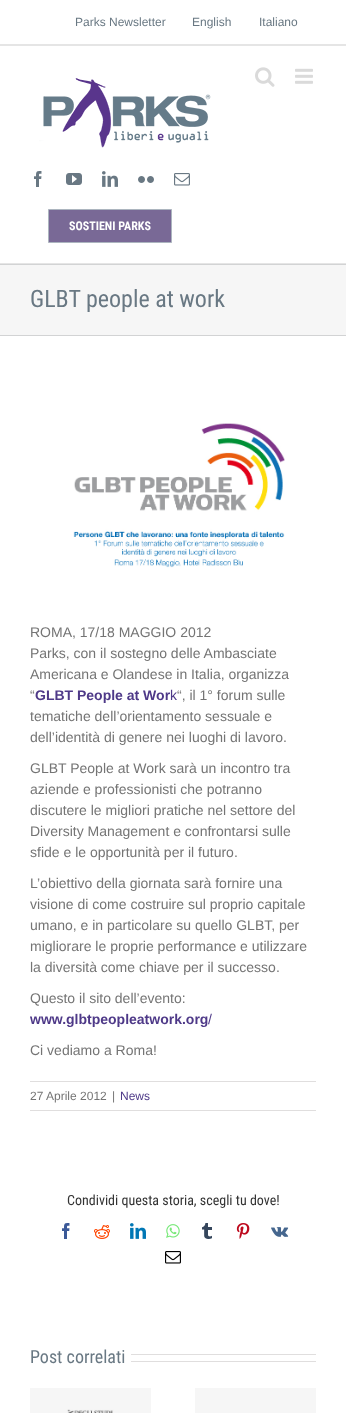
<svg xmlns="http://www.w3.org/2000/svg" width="346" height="1413">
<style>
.a{font:12px Arimo;fill:#697883}
.b{font:bold 12px Roboto Condensed;fill:#fff}
.c{font:24px Roboto Condensed;fill:#697883}
.d{font:14px Arimo;fill:#747474}
.e{font:bold 14px Arimo;fill:#4e3988}
.f{font:14px Arimo;fill:#4e3988}
.g{font:12px Arimo;fill:#747474}
.h{font:12px Arimo;fill:#4e3988}
.i{font:14px Roboto Condensed;fill:#333}
.j{font:18px Roboto Condensed;fill:#697883}
</style>
<rect width="100%" height="100%" fill="#f6f6f6"/>
<path fill="#fff" d="M0 0h346v44H0z"/>
<path fill="#e5e5e5" d="M0 44h346v2H0z"/>
<path fill="#fff" d="M0 46h346v217H0z"/>
<path fill="#e5e5e5" d="M0 263h346v1H0z"/>
<image href="1.png" x="255" y="67" width="20" height="20"/>
<image href="2.png" x="295" y="68" width="18" height="16"/>
<image href="3.png" x="39" y="78" width="172" height="70"/>
<image href="4.png" x="34" y="171" width="8" height="16"/>
<image href="5.png" x="66" y="173" width="16" height="12"/>
<image href="6.png" x="102" y="171" width="16" height="16"/>
<image href="7.png" x="138" y="176" width="16" height="7"/>
<image href="8.png" x="174" y="173" width="16" height="13"/>
<path fill="#796996" stroke="#acb5bf" d="M48.5 209.5h123v33H48.5z"/>
<path fill="#d2d3d4" d="M0 264h346v1H0z"/>
<path fill="#d2d3d4" d="M0 335h346v1H0z"/>
<path fill="#fff" d="M0 336h346v1077H0z"/>
<image href="9.png" x="73" y="423" width="212" height="145"/>
<path fill="#e0dede" d="M30 1081h286v1H30z"/>
<path fill="#e0dede" d="M30 1110h286v1H30z"/>
<image href="10.png" x="62" y="1223" width="8" height="16"/>
<image href="11.png" x="94" y="1225" width="16" height="14"/>
<image href="12.png" x="130" y="1223" width="16" height="16"/>
<image href="13.png" x="166" y="1224" width="14" height="14"/>
<image href="14.png" x="202" y="1223" width="10" height="16"/>
<image href="15.png" x="236" y="1223" width="14" height="16"/>
<image href="16.png" x="271" y="1227" width="18" height="10"/>
<image href="17.png" x="165" y="1251" width="16" height="13"/>
<path fill="#e0dede" d="M131 1354h185v1H131z"/>
<path fill="#e0dede" d="M131 1361h185v1H131z"/>
<image href="18.png" x="30" y="1388" width="121" height="25"/>
<path fill="#f6f6f6" d="M195 1388h121v25H195z"/>
<text class="a" x="75" y="26">Parks Newsletter</text>
<text class="a" x="192" y="26">English</text>
<text class="a" x="259" y="26">Italiano</text>
<text class="b" x="69" y="230">SOSTIENI PARKS</text>
<text class="c" x="30" y="307">GLBT people at work</text>
<text class="d" x="30" y="637">ROMA, 17/18 MAGGIO 2012</text>
<text class="d" x="30" y="658">Parks, con il sostegno delle Ambasciate</text>
<text class="d" x="30" y="679">Americana e Olandese in Italia, organizza</text>
<text class="d" x="30" y="700">“</text>
<text class="e" x="35" y="700">GLBT People at Wor</text>
<text class="f" x="170" y="700">k</text>
<text class="d" x="177" y="700">“, il 1° forum sulle</text>
<text class="d" x="30" y="721">tematiche dell’orientamento sessuale e</text>
<text class="d" x="30" y="742">dell’identità di genere nei luoghi di lavoro.</text>
<text class="d" x="30" y="773">GLBT People at Work sarà un incontro tra</text>
<text class="d" x="30" y="794">aziende e professionisti che potranno</text>
<text class="d" x="30" y="815">discutere le migliori pratiche nel settore del</text>
<text class="d" x="30" y="836">Diversity Management e confrontarsi sulle</text>
<text class="d" x="30" y="857">sfide e le opportunità per il futuro.</text>
<text class="d" x="30" y="888">L’obiettivo della giornata sarà fornire una</text>
<text class="d" x="30" y="909">visione di come costruire sul proprio capitale</text>
<text class="d" x="30" y="930">umano, e in particolare su quello GLBT, per</text>
<text class="d" x="30" y="951">migliorare le proprie performance e utilizzare</text>
<text class="d" x="30" y="972">la diversità come chiave per il successo.</text>
<text class="d" x="30" y="1003">Questo il sito dell’evento:</text>
<text class="e" x="30" y="1024">www.glbtpeopleatwork.org</text>
<text class="f" x="208" y="1024">/</text>
<text class="d" x="30" y="1055">Ci vediamo a Roma!</text>
<text class="g" x="30" y="1100">27 Aprile 2012</text>
<text class="g" x="112" y="1100">|</text>
<text class="h" x="120" y="1100">News</text>
<text class="i" x="67" y="1205">Condividi questa storia, scegli tu dove!</text>
<text class="j" x="30" y="1363">Post correlati</text>
</svg>
